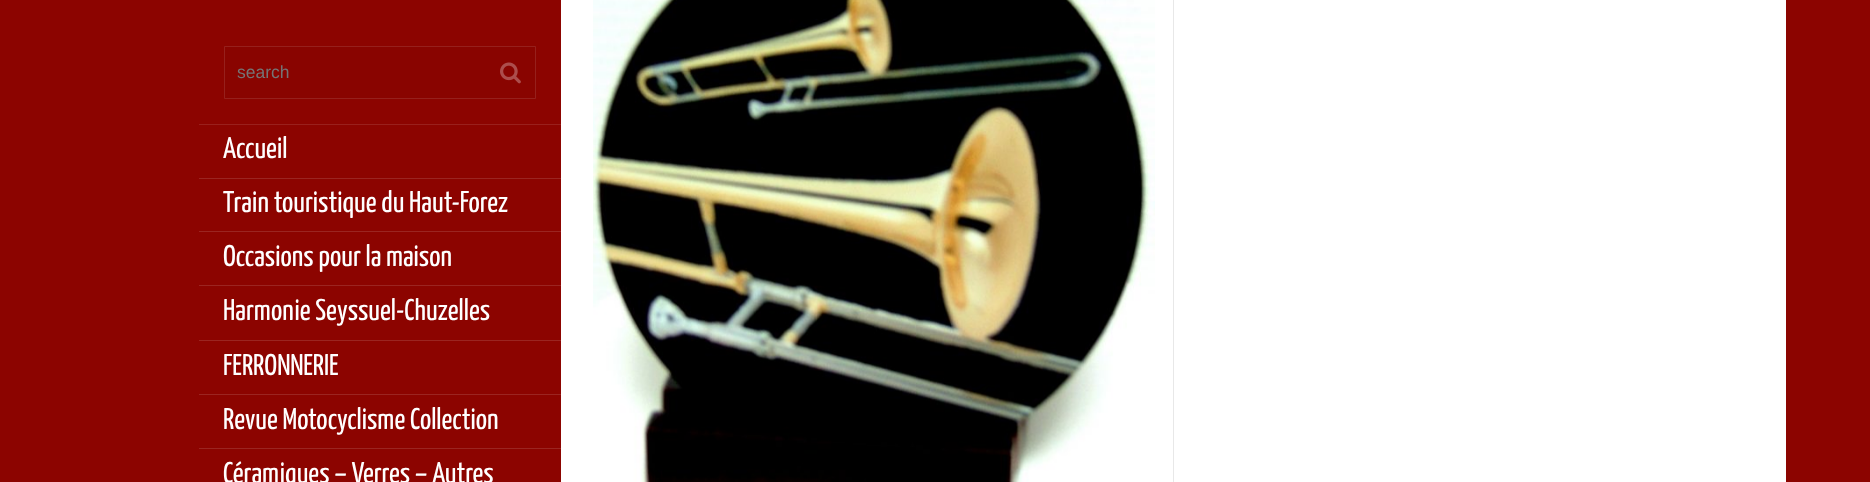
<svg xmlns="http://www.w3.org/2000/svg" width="1870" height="482">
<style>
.a{font:17.5px Liberation Sans;fill:#757575}
.b{font:30px Yanone Kaffeesatz;fill:#fff}
</style>
<rect width="100%" height="100%" fill="#8c0400"/>
<path fill="#99201c" d="M199 124h362v1H199z"/>
<path fill="#890400" stroke="#96201c" d="M224.5 46.5h311v52H224.5z"/>
<image href="1.png" x="500" y="62" width="21" height="22"/>
<path fill="#9b2521" d="M199 178h362v1H199z"/>
<path fill="#9b2521" d="M199 231h362v1H199z"/>
<path fill="#9b2521" d="M199 285h362v1H199z"/>
<path fill="#9b2521" d="M199 340h362v1H199z"/>
<path fill="#9b2521" d="M199 394h362v1H199z"/>
<path fill="#9b2521" d="M199 448h362v1H199z"/>
<path fill="#fff" d="M561 0h1225v482H561z"/>
<image href="2.png" x="593" y="0" width="562" height="482"/>
<path fill="#e8e8e8" d="M1173 0h1v482H1173z"/>
<text class="a" x="237" y="78">search</text>
<text class="b" x="223" y="158">Accueil</text>
<text class="b" x="223" y="212">Train touristique du Haut-Forez</text>
<text class="b" x="223" y="266">Occasions pour la maison</text>
<text class="b" x="223" y="320">Harmonie Seyssuel-Chuzelles</text>
<text class="b" x="223" y="375">FERRONNERIE</text>
<text class="b" x="223" y="429">Revue Motocyclisme Collection</text>
<text class="b" x="223" y="483">Céramiques – Verres – Autres</text>
</svg>
